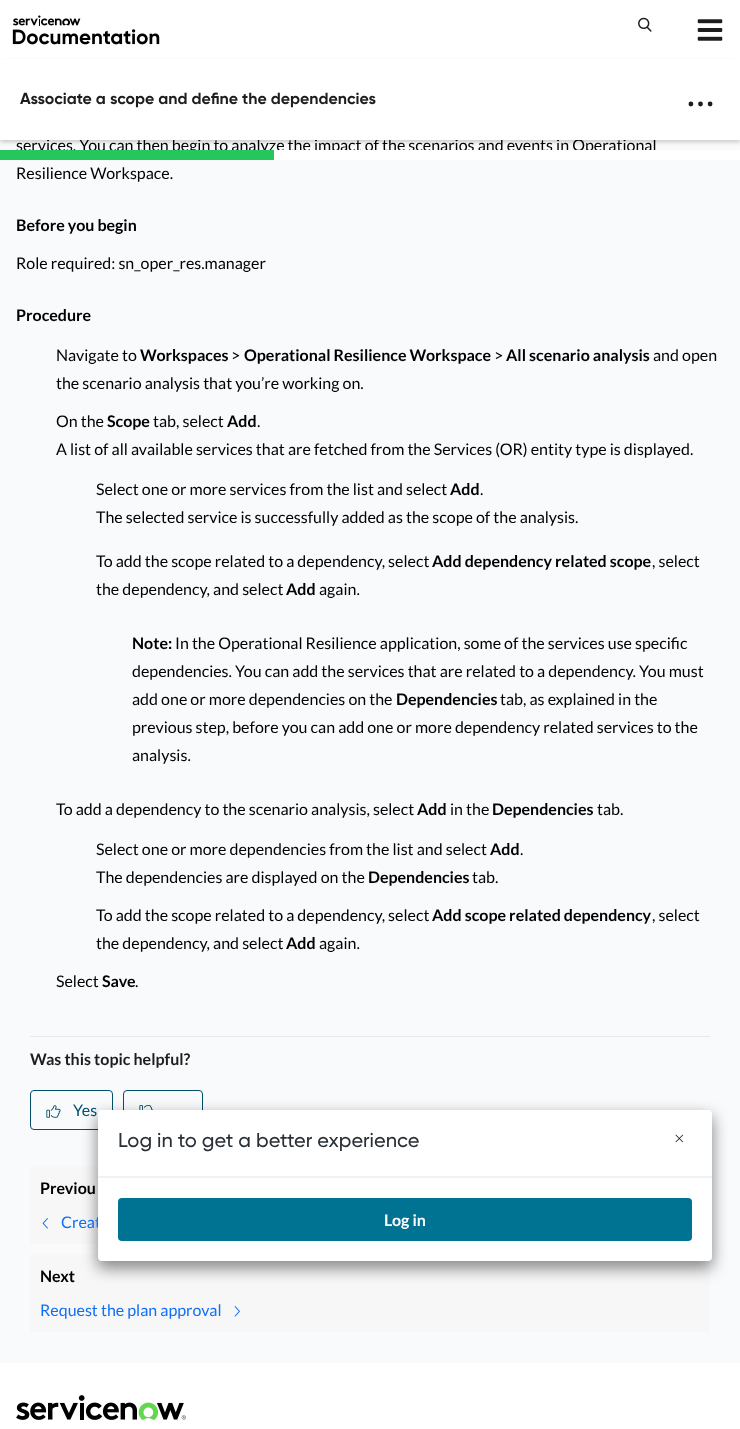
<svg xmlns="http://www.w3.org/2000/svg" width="740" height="1429">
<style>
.a{font:16px Lato;fill:#000}
.b{font:bold 16px Gilroy;fill:#1d1d1d}
.c{font:bold 16px Lato;fill:#000}
.d{font:bold 16px Lato;fill:#1d1d1d}
.e{font:16px Lato;fill:#02506b}
.f{font:16px Lato;fill:#106ff4}
.g{font:500 20px Gilroy;fill:#282f36}
.h{font:bold 16px Lato;fill:#fff}
</style>
<rect width="100%" height="100%" fill="#fff"/>
<image href="1.png" x="12" y="15" width="148" height="30"/>
<image href="2.png" x="638" y="17" width="14" height="15"/>
<image href="3.png" x="697" y="19" width="26" height="22"/>
<path fill="#f8fafc" d="M0 140h740v1223H0z"/>
<path fill="#00000033" filter="blur(2px)" d="M0 62h740v80H0z"/>
<path fill="#e8e8e8" d="M30 1036h680v1H30z"/>
<rect fill="none" stroke="#02506b" x="30.5" y="1090.5" width="82" height="39" rx="3.5"/>
<image href="4.png" x="46" y="1105" width="15" height="13"/>
<rect fill="none" stroke="#02506b" x="123.5" y="1090.5" width="79" height="39" rx="3.5"/>
<image href="5.png" x="139" y="1105" width="14" height="5"/>
<path fill="#f7f7f7" d="M30 1166h68v78H30z"/>
<image href="6.png" x="42" y="1218" width="6" height="11"/>
<path fill="#f7f7f7" d="M30 1254h680v78H30z"/>
<image href="7.png" x="234" y="1306" width="6" height="11"/>
<rect fill="#00000040" filter="blur(7.5px)" x="98" y="1115" width="614" height="151" rx="4"/>
<rect fill="#00000045" filter="blur(8px)" x="98" y="1118" width="614" height="151" rx="4"/>
<image href="9.png" x="16" y="1395" width="170" height="25"/>
<text class="a" x="16" y="151">services. You can then begin to analyze the impact of the scenarios and events in Operational</text>
<path fill="#fff" d="M0 59h740v81H0z"/>
<circle fill="#1d1d1d" cx="710.1" cy="104" r="2.4"/>
<circle fill="#1d1d1d" cx="700.5" cy="104" r="2.4"/>
<circle fill="#1d1d1d" cx="690.9" cy="104" r="2.4"/>
<text class="b" x="20" y="104">Associate a scope and define the dependencies</text>
<path fill="#25c75d" d="M0 150h274v10H0z"/>
<path fill="#fff" d="M274 150h466v10H274z"/>
<text class="a" x="16" y="179">Resilience Workspace.</text>
<text class="c" x="16" y="231">Before you begin</text>
<text class="a" x="16" y="269">Role required: sn_oper_res.manager</text>
<text class="c" x="16" y="321">Procedure</text>
<text class="a" x="56" y="361">Navigate to</text>
<text class="c" x="140" y="361">Workspaces</text>
<text class="a" x="231" y="361">&gt;</text>
<text class="c" x="244" y="361">Operational Resilience Workspace</text>
<text class="a" x="494" y="361">&gt;</text>
<text class="c" x="506" y="361">All scenario analysis</text>
<text class="a" x="653" y="361">and open</text>
<text class="a" x="56" y="389">the scenario analysis that you’re working on.</text>
<text class="a" x="56" y="427">On the</text>
<text class="c" x="107" y="427">Scope</text>
<text class="a" x="153" y="427">tab, select</text>
<text class="c" x="227" y="427">Add</text>
<text class="a" x="257" y="427">.</text>
<text class="a" x="56" y="455">A list of all available services that are fetched from the Services (OR) entity type is displayed.</text>
<text class="a" x="96" y="495">Select one or more services from the list and select</text>
<text class="c" x="450" y="495">Add</text>
<text class="a" x="480" y="495">.</text>
<text class="a" x="96" y="523">The selected service is successfully added as the scope of the analysis.</text>
<text class="a" x="96" y="567">To add the scope related to a dependency, select</text>
<text class="c" x="432" y="567">Add dependency related scope</text>
<text class="a" x="652" y="567">, select</text>
<text class="a" x="96" y="595">the dependency, and select</text>
<text class="c" x="286" y="595">Add</text>
<text class="a" x="319" y="595">again.</text>
<text class="c" x="132" y="649">Note:</text>
<text class="a" x="175" y="649">In the Operational Resilience application, some of the services use specific</text>
<text class="a" x="132" y="677">dependencies. You can add the services that are related to a dependency. You must</text>
<text class="a" x="132" y="705">add one or more dependencies on the</text>
<text class="c" x="396" y="705">Dependencies</text>
<text class="a" x="500" y="705">tab, as explained in the</text>
<text class="a" x="132" y="733">previous step, before you can add one or more dependency related services to the</text>
<text class="a" x="132" y="761">analysis.</text>
<text class="a" x="56" y="815">To add a dependency to the scenario analysis, select</text>
<text class="c" x="417" y="815">Add</text>
<text class="a" x="450" y="815">in the</text>
<text class="c" x="492" y="815">Dependencies</text>
<text class="a" x="597" y="815">tab.</text>
<text class="a" x="96" y="855">Select one or more dependencies from the list and select</text>
<text class="c" x="490" y="855">Add</text>
<text class="a" x="520" y="855">.</text>
<text class="a" x="96" y="883">The dependencies are displayed on the</text>
<text class="c" x="368" y="883">Dependencies</text>
<text class="a" x="472" y="883">tab.</text>
<text class="a" x="96" y="921">To add the scope related to a dependency, select</text>
<text class="c" x="432" y="921">Add scope related dependency</text>
<text class="a" x="652" y="921">, select</text>
<text class="a" x="96" y="949">the dependency, and select</text>
<text class="c" x="286" y="949">Add</text>
<text class="a" x="319" y="949">again.</text>
<text class="a" x="56" y="987">Select</text>
<text class="c" x="102" y="987">Save</text>
<text class="a" x="135" y="987">.</text>
<text class="d" x="30" y="1065">Was this topic helpful?</text>
<text class="e" x="73" y="1116">Yes</text>
<text class="c" x="40" y="1194">Previou</text>
<text class="f" x="61" y="1228">Creat</text>
<text class="c" x="40" y="1282">Next</text>
<text class="f" x="40" y="1316">Request the plan approval</text>
<rect fill="#fff" x="98" y="1110" width="614" height="151" rx="4"/>
<path fill="#fff" d="M102 1110h606c2 0 4 2 4 4v63h-614v-63c0-2 2-4 4-4z"/>
<path fill="#f1f1f1" d="M98 1176h614v2H98z"/>
<text class="g" x="118" y="1147">Log in to get a better experience</text>
<image href="8.png" x="675" y="1134" width="8" height="9"/>
<rect fill="#007393" x="118" y="1198" width="574" height="43" rx="4"/>
<text class="h" x="384" y="1226">Log in</text>
</svg>
